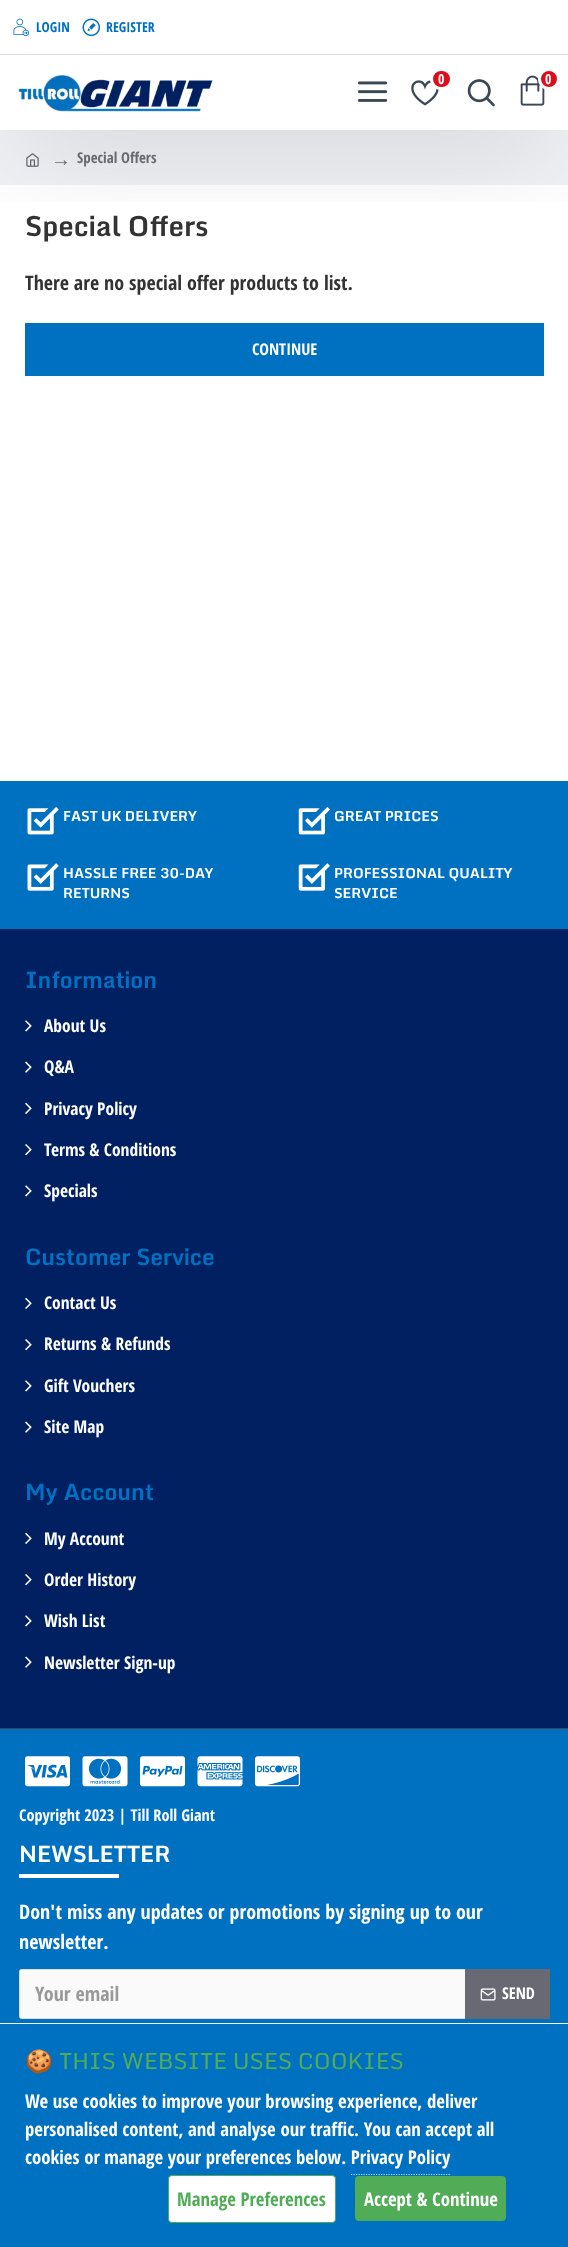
<svg xmlns="http://www.w3.org/2000/svg" width="568" height="2247">
<style>
.a{font:bold 13.75px Open Sans Condensed;fill:#0071c1}
.b{font:bold 13.75px Open Sans Condensed;fill:#fff}
.c{font:20px Liberation Serif;fill:#696973}
.d{font:bold 15px Open Sans Condensed;fill:#696973}
.e{font:bold 27.5px Monda;fill:#333}
.f{font:bold 20px Open Sans Condensed;fill:#333}
.g{font:bold 16.25px Open Sans Condensed;fill:#fff}
.h{font:bold 13.75px Monda;fill:#fff}
.i{font:bold 22.5px Monda;fill:#0071c1}
.j{font:bold 17.5px Open Sans Condensed;fill:#fff}
.k{font:bold 22.5px Monda;fill:#fff}
.l{font:bold 20px Open Sans Condensed;fill:#fff}
.m{font:bold 20px Open Sans Condensed;fill:#999}
.n{font:22.5px Noto Color Emoji;fill:#50ac56}
.o{font:22.5px Monda;fill:#50ac56}
.p{font:bold 18.75px Open Sans Condensed;fill:#fff}
.q{font:bold 18.75px Open Sans Condensed;fill:#50ac56}
</style>
<defs>
<clipPath id="clip1"><path d="M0 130h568v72H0z"/></clipPath>
</defs>
<rect width="100%" height="100%" fill="#fff"/>
<path fill="#f0f2f5" d="M0 130h568v55H0z"/>
<image href="8.png" x="26" y="153" width="13" height="14"/>
<g clip-path="url(#clip1)">
<path fill="#00000033" filter="blur(56px)" d="M13 86h543v50H13z"/>
</g>
<path fill="#fff" d="M0 0h568v54H0z"/>
<path fill="#ddd" d="M0 54h568v1H0z"/>
<image href="1.png" x="13" y="18" width="16" height="19"/>
<image href="2.png" x="82" y="18" width="18" height="19"/>
<image href="3.png" x="18" y="75" width="195" height="37"/>
<image href="4.png" x="357" y="81" width="31" height="21"/>
<image href="5.png" x="411" y="80" width="28" height="26"/>
<rect fill="#dd0e1c" stroke="#fff" stroke-width="3" x="431.5" y="69.5" width="20" height="19" rx="9.5"/>
<image href="6.png" x="467" y="79" width="28" height="28"/>
<image href="7.png" x="520" y="75" width="25" height="31"/>
<circle fill="#dd0e1c" stroke="#fff" stroke-width="3" cx="549" cy="79" r="9.5"/>
<path fill="#0071c1" d="M25 323h519v53H25z"/>
<path fill="#0071c1" d="M0 781h568v148H0z"/>
<image href="9.png" x="27" y="807" width="32" height="28"/>
<image href="10.png" x="298" y="807" width="32" height="28"/>
<image href="11.png" x="27" y="863" width="32" height="28"/>
<image href="12.png" x="298" y="863" width="32" height="28"/>
<path fill="#012061" d="M0 929h568v799H0z"/>
<image href="13.png" x="25" y="1020" width="7" height="12"/>
<image href="14.png" x="25" y="1061" width="7" height="12"/>
<image href="15.png" x="25" y="1102" width="7" height="12"/>
<image href="16.png" x="25" y="1144" width="7" height="12"/>
<image href="13.png" x="25" y="1185" width="7" height="12"/>
<image href="15.png" x="25" y="1297" width="7" height="12"/>
<image href="16.png" x="25" y="1339" width="7" height="12"/>
<image href="13.png" x="25" y="1380" width="7" height="12"/>
<image href="14.png" x="25" y="1421" width="7" height="12"/>
<image href="15.png" x="25" y="1532" width="7" height="12"/>
<image href="16.png" x="25" y="1574" width="7" height="12"/>
<image href="13.png" x="25" y="1615" width="7" height="12"/>
<image href="14.png" x="25" y="1656" width="7" height="12"/>
<path fill="#0071c1" d="M0 1729h568v294H0z"/>
<path fill="#3a4754" d="M0 1728h568v1H0z"/>
<image href="17.png" x="25" y="1756" width="45" height="31"/>
<image href="18.png" x="82" y="1756" width="46" height="31"/>
<image href="19.png" x="140" y="1756" width="45" height="31"/>
<image href="20.png" x="197" y="1756" width="46" height="31"/>
<image href="21.png" x="255" y="1756" width="45" height="31"/>
<path fill="#fff" d="M19 1874h100v4H19z"/>
<rect fill="#fafafa" stroke="#ddd" x="19.5" y="1969.5" width="530" height="49" rx="2"/>
<path fill="#696973" d="M465 1969h85v50H465z"/>
<image href="22.png" x="480" y="1988" width="16" height="13"/>
<path fill="#0071c1" d="M0 2024h568v223H0z"/>
<path fill="#f1f1f0" d="M0 2023h568v1H0z"/>
<path fill="none" stroke="#bfdcf0" stroke-width="1.2" stroke-dasharray="1.25 1.25" d="M351 2174.5h99"/>
<rect fill="#fff" stroke="#50ac56" x="168.5" y="2175.5" width="167" height="47" rx="3.5"/>
<rect fill="#50ac56" x="355" y="2176" width="151" height="45" rx="4"/>
<text class="a" x="36" y="32">LOGIN</text>
<text class="a" x="106" y="32">REGISTER</text>
<text class="b" x="438" y="84">0</text>
<text class="b" x="545" y="84">0</text>
<text class="c" x="51" y="166">→</text>
<text class="d" x="77" y="163">Special Offers</text>
<text class="e" x="25" y="236">Special Offers</text>
<text class="f" x="25" y="290">There are no special offer products to list.</text>
<text class="g" x="252" y="355">CONTINUE</text>
<text class="h" x="63" y="821">FAST UK DELIVERY</text>
<text class="h" x="334" y="821">GREAT PRICES</text>
<text class="h" x="63" y="878">HASSLE FREE 30-DAY</text>
<text class="h" x="63" y="898">RETURNS</text>
<text class="h" x="334" y="878">PROFESSIONAL QUALITY</text>
<text class="h" x="334" y="898">SERVICE</text>
<text class="i" x="25" y="988">Information</text>
<text class="j" x="44" y="1032">About Us</text>
<text class="j" x="44" y="1073">Q&amp;A</text>
<text class="j" x="44" y="1115">Privacy Policy</text>
<text class="j" x="44" y="1156">Terms &amp; Conditions</text>
<text class="j" x="44" y="1197">Specials</text>
<text class="i" x="25" y="1265">Customer Service</text>
<text class="j" x="44" y="1309">Contact Us</text>
<text class="j" x="44" y="1350">Returns &amp; Refunds</text>
<text class="j" x="44" y="1392">Gift Vouchers</text>
<text class="j" x="44" y="1433">Site Map</text>
<text class="i" x="25" y="1500">My Account</text>
<text class="j" x="44" y="1545">My Account</text>
<text class="j" x="44" y="1586">Order History</text>
<text class="j" x="44" y="1627">Wish List</text>
<text class="j" x="44" y="1669">Newsletter Sign-up</text>
<text class="g" x="19" y="1821">Copyright 2023 | Till Roll Giant</text>
<text class="k" x="19" y="1862">NEWSLETTER</text>
<text class="l" x="19" y="1919">Don't miss any updates or promotions by signing up to our</text>
<text class="l" x="19" y="1949">newsletter.</text>
<text class="m" x="35" y="2001">Your email</text>
<text class="g" x="502" y="1999">SEND</text>
<text class="n" x="25" y="2069">🍪</text>
<text class="o" x="59" y="2069">THIS WEBSITE USES COOKIES</text>
<text class="p" x="25" y="2108">We use cookies to improve your browsing experience, deliver</text>
<text class="p" x="25" y="2136">personalised content, and analyse our traffic. You can accept all</text>
<text class="p" x="25" y="2164">cookies or manage your preferences below. Privacy Policy</text>
<text class="q" x="177" y="2206">Manage Preferences</text>
<text class="p" x="364" y="2206">Accept &amp; Continue</text>
</svg>
